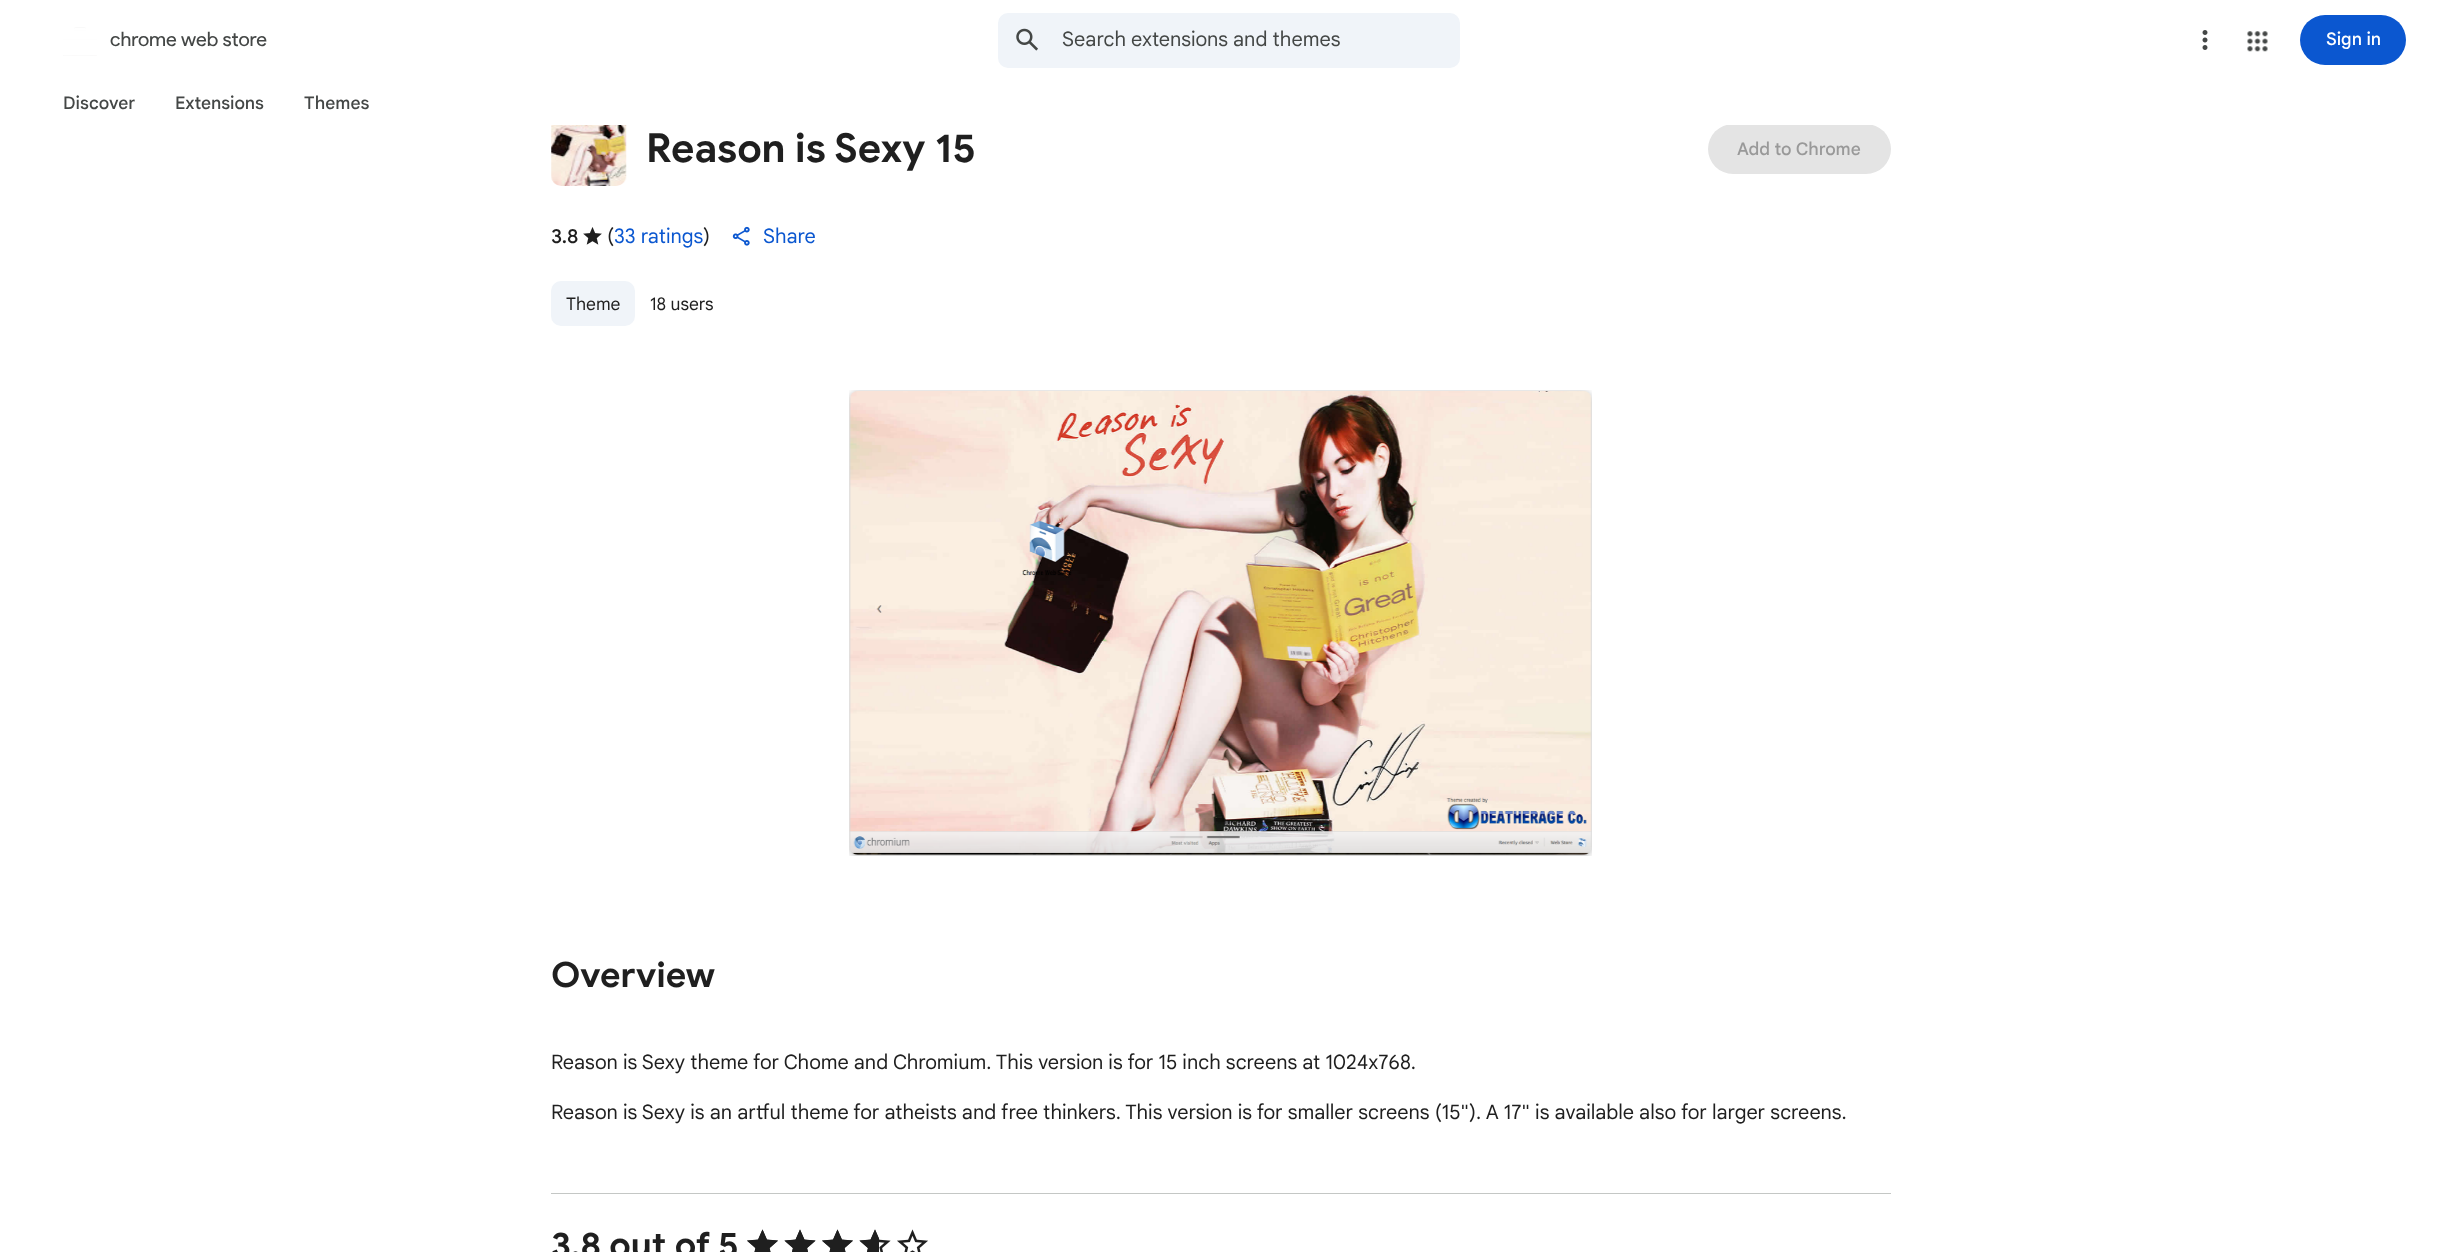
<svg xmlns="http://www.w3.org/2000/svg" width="2441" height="1252">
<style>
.a{font:20px Product Sans;fill:#444746}
.b{font:20px Google Sans;fill:#444746}
.c{font:500 17.5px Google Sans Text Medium;fill:#fff}
.d{font:500 17.5px Google Sans Text Medium;fill:#444746}
.e{font:bold 40px Google Sans;fill:#1f1f1f}
.f{font:500 17.5px Google Sans Text Medium;fill:#999}
.g{font:500 20px Google Sans;fill:#1f1f1f}
.h{font:20px Google Sans;fill:#1f1f1f}
.i{font:20px Google Sans;fill:#0b57d0}
.j{font:20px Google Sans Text;fill:#0b57d0}
.k{font:17.5px Google Sans;fill:#1f1f1f}
.l{font:bold 35px Google Sans;fill:#1f1f1f}
</style>
<defs>
<clipPath id="clip1"><path d="M856 1226h23v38H856z"/></clipPath>
</defs>
<rect width="100%" height="100%" fill="#fff"/>
<rect fill="#e4e4e4" x="1708" y="124" width="183" height="50" rx="25"/>
<path fill="#fff" d="M1726 124h147v1H1726z"/>
<image href="1.png" x="63" y="27" width="34" height="29"/>
<rect fill="#f0f4f9" x="998" y="13" width="462" height="55" rx="10"/>
<image href="2.png" x="1016" y="28" width="22" height="23"/>
<image href="3.png" x="2202" y="30" width="6" height="20"/>
<image href="4.png" x="2247" y="31" width="21" height="21"/>
<rect fill="#0b57d0" x="2300" y="15" width="106" height="50" rx="25"/>
<image href="5.png" x="551" y="125" width="76" height="61"/>
<image href="6.png" x="583" y="227" width="19" height="18"/>
<image href="7.png" x="732" y="226" width="18" height="20"/>
<rect fill="#f0f4f9" x="551" y="281" width="84" height="45" rx="10"/>
<image href="8.png" x="849" y="390" width="743" height="466"/>
<path fill="#c4c7c5" d="M551 1193h1340v1H551z"/>
<image href="9.png" x="747" y="1229" width="31" height="23"/>
<image href="10.png" x="784" y="1229" width="32" height="23"/>
<image href="9.png" x="822" y="1229" width="31" height="23"/>
<image href="10.png" x="859" y="1229" width="32" height="23"/>
<image href="9.png" x="897" y="1229" width="31" height="23"/>
<path fill="#1f1f1f" d="M762.5 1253l9.5 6l-2.5-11l8.5-7.5l-11-1l-4.5-10l-4.5 10l-11 1l8.5 7.5l-2.5 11z"/>
<path fill="#1f1f1f" d="M800 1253l9.5 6l-2.5-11l8.5-7.5l-11-1l-4.5-10l-4.5 10l-11 1l8.5 7.5l-2.5 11z"/>
<path fill="#1f1f1f" d="M837.5 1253l9.5 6l-2.5-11l8.5-7.5l-11-1l-4.5-10l-4.5 10l-11 1l8.5 7.5l-2.5 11z"/>
<g clip-path="url(#clip1)">
<path fill="#1f1f1f" d="M875 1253l9.5 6l-2.5-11l8.5-7.5l-11-1l-4.5-10l-4.5 10l-11 1l8.5 7.5l-2.5 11z"/>
</g>
<text class="a" x="110" y="46">chrome web store</text>
<text class="b" x="1062" y="46">Search extensions and themes</text>
<text class="c" x="2326" y="45">Sign in</text>
<text class="d" x="63" y="109">Discover</text>
<text class="d" x="175" y="109">Extensions</text>
<text class="d" x="304" y="109">Themes</text>
<text class="e" x="646" y="162">Reason is Sexy 15</text>
<text class="f" x="1737" y="155">Add to Chrome</text>
<text class="g" x="551" y="243">3.8</text>
<text class="h" x="607" y="243">(</text>
<text class="i" x="614" y="243">33 ratings</text>
<text class="h" x="703" y="243">)</text>
<text class="j" x="763" y="243">Share</text>
<text class="k" x="566" y="310">Theme</text>
<text class="k" x="650" y="310">18 users</text>
<text class="l" x="551" y="987">Overview</text>
<text class="h" x="551" y="1069">Reason is Sexy theme for Chome and Chromium. This version is for 15 inch screens at 1024x768.</text>
<text class="h" x="551" y="1119">Reason is Sexy is an artful theme for atheists and free thinkers. This version is for smaller screens (15"). A 17" is available also for larger screens.</text>
<text class="l" x="551" y="1257">3.8 out of 5</text>
</svg>
